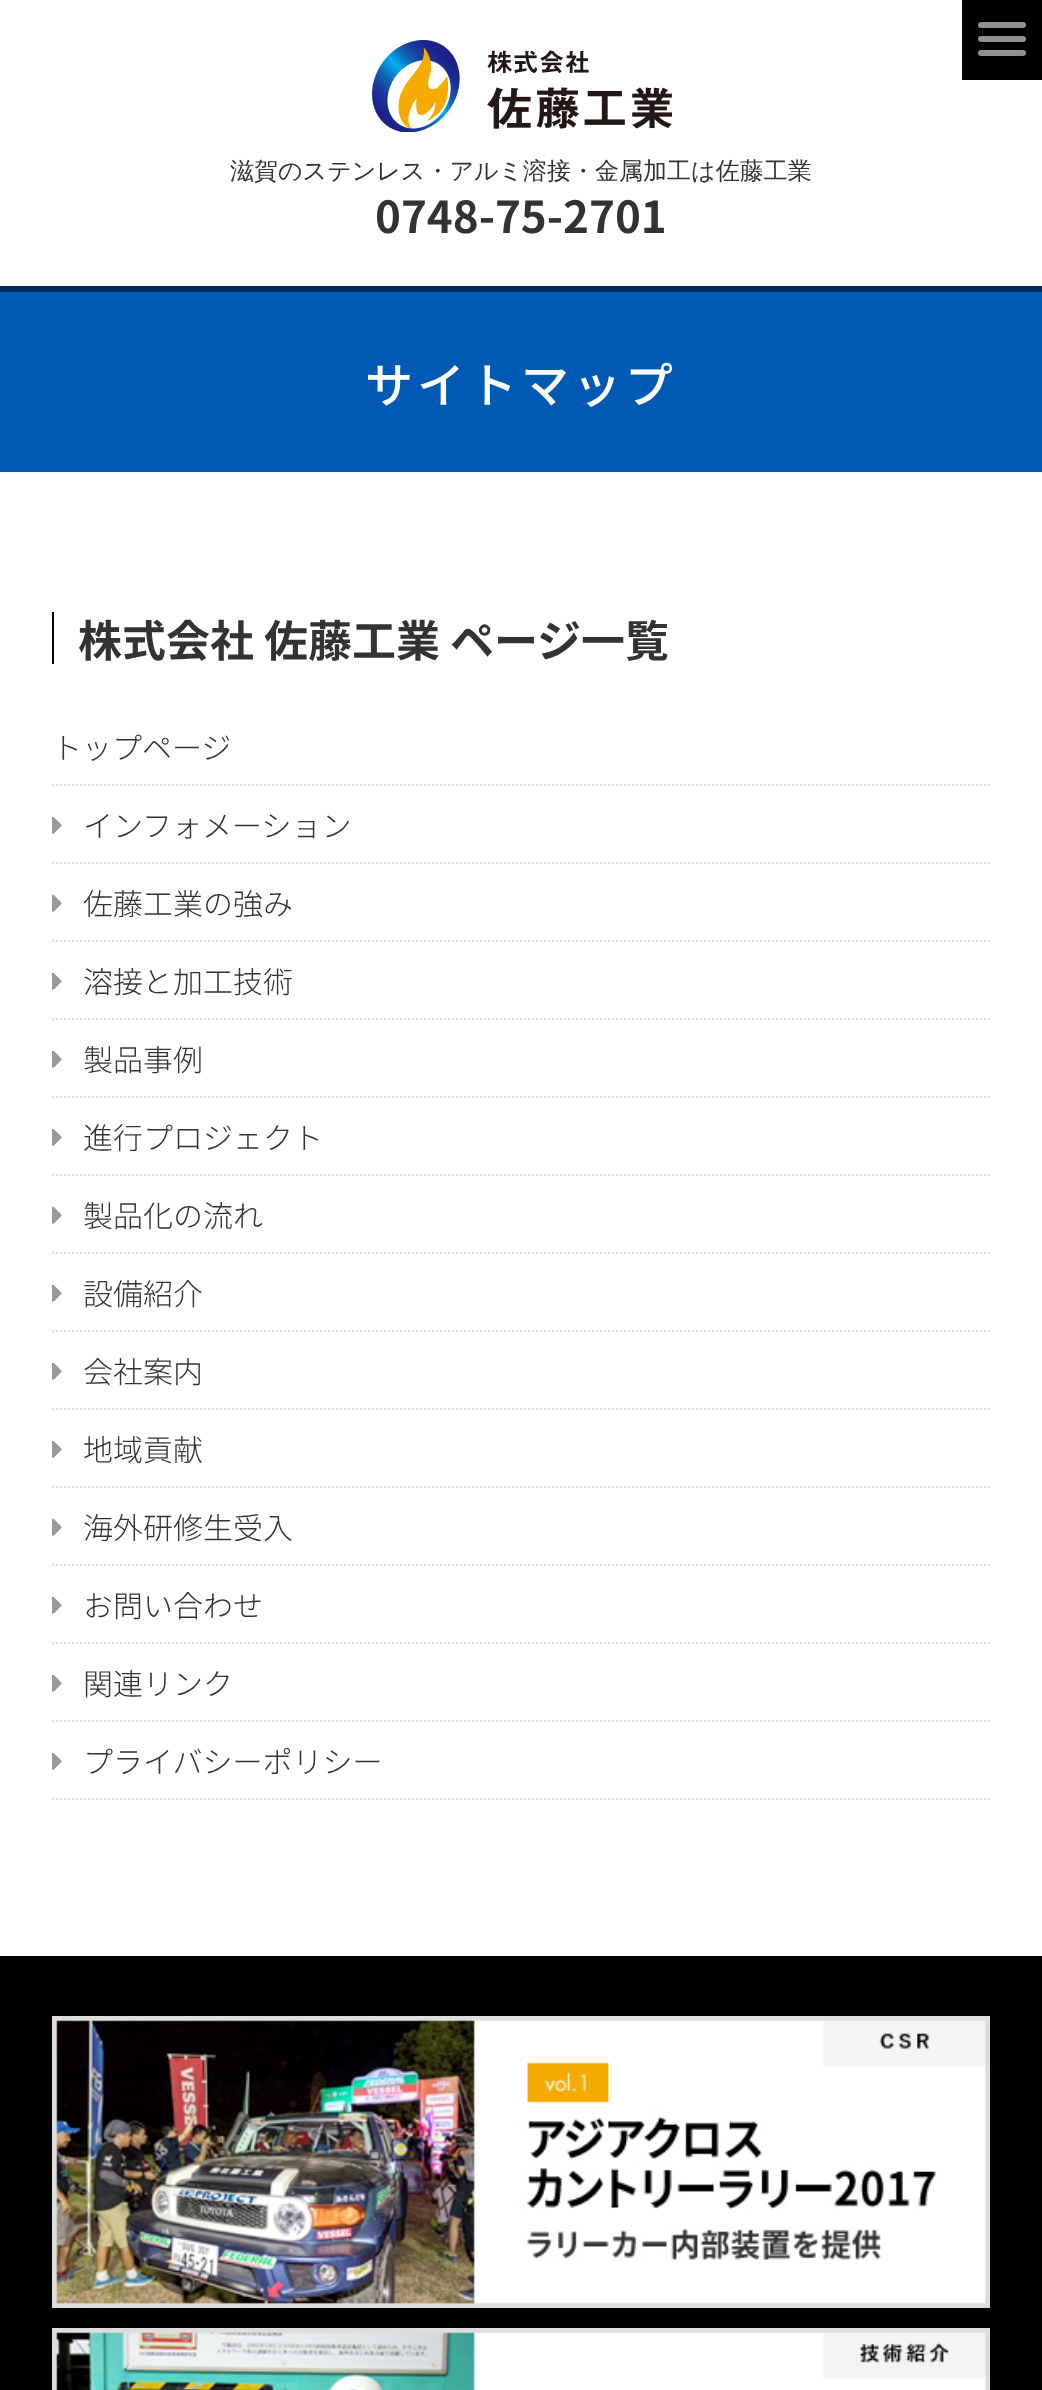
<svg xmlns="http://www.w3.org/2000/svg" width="1042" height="2390">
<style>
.a{font:500 24px WenQuanYi Zen Hei;fill:#333}
.b{font:bold 44px Noto Sans JP;fill:#333}
.c{font:500 48px Noto Sans JP;letter-spacing:4px;fill:#fff}
.d{font:300 30px Noto Sans JP;fill:#333}
</style>
<rect width="100%" height="100%" fill="#fff"/>
<path fill="#000" d="M962 0h80v80H962z"/>
<rect fill="#909090" x="978" y="22" width="48" height="6" rx="3"/>
<rect fill="#909090" x="978" y="36" width="48" height="6" rx="3"/>
<rect fill="#909090" x="978" y="50" width="48" height="6" rx="3"/>
<image href="1.png" x="372" y="40" width="300" height="92"/>
<path fill="#0059b2" d="M0 292h1042v180H0z"/>
<path fill="#002c58" d="M0 286h1042v6H0z"/>
<path fill="#000" d="M52 612h2v52H52z"/>
<path fill="none" stroke="#ddd" stroke-width="2" stroke-dasharray="2 2" d="M52 785h938"/>
<path fill="none" stroke="#ddd" stroke-width="2" stroke-dasharray="2 2" d="M52 863h938"/>
<image href="2.png" x="52" y="816" width="10" height="18"/>
<path fill="none" stroke="#ddd" stroke-width="2" stroke-dasharray="2 2" d="M52 941h938"/>
<image href="2.png" x="52" y="894" width="10" height="18"/>
<path fill="none" stroke="#ddd" stroke-width="2" stroke-dasharray="2 2" d="M52 1019h938"/>
<image href="2.png" x="52" y="972" width="10" height="18"/>
<path fill="none" stroke="#ddd" stroke-width="2" stroke-dasharray="2 2" d="M52 1097h938"/>
<image href="2.png" x="52" y="1050" width="10" height="18"/>
<path fill="none" stroke="#ddd" stroke-width="2" stroke-dasharray="2 2" d="M52 1175h938"/>
<image href="2.png" x="52" y="1128" width="10" height="18"/>
<path fill="none" stroke="#ddd" stroke-width="2" stroke-dasharray="2 2" d="M52 1253h938"/>
<image href="2.png" x="52" y="1206" width="10" height="18"/>
<path fill="none" stroke="#ddd" stroke-width="2" stroke-dasharray="2 2" d="M52 1331h938"/>
<image href="2.png" x="52" y="1284" width="10" height="18"/>
<path fill="none" stroke="#ddd" stroke-width="2" stroke-dasharray="2 2" d="M52 1409h938"/>
<image href="2.png" x="52" y="1362" width="10" height="18"/>
<path fill="none" stroke="#ddd" stroke-width="2" stroke-dasharray="2 2" d="M52 1487h938"/>
<image href="2.png" x="52" y="1440" width="10" height="18"/>
<path fill="none" stroke="#ddd" stroke-width="2" stroke-dasharray="2 2" d="M52 1565h938"/>
<image href="2.png" x="52" y="1518" width="10" height="18"/>
<path fill="none" stroke="#ddd" stroke-width="2" stroke-dasharray="2 2" d="M52 1643h938"/>
<image href="2.png" x="52" y="1596" width="10" height="18"/>
<path fill="none" stroke="#ddd" stroke-width="2" stroke-dasharray="2 2" d="M52 1721h938"/>
<image href="2.png" x="52" y="1674" width="10" height="18"/>
<path fill="none" stroke="#ddd" stroke-width="2" stroke-dasharray="2 2" d="M52 1799h938"/>
<image href="2.png" x="52" y="1752" width="10" height="18"/>
<path fill="#000" d="M0 1956h1042v434H0z"/>
<image href="3.png" x="52" y="2016" width="938" height="292"/>
<image href="4.png" x="52" y="2328" width="938" height="62"/>
<text class="a" x="230" y="179">滋賀のステンレス・アルミ溶接・金属加工は佐藤工業</text>
<text class="b" x="375" y="233">0748-75-2701</text>
<text class="c" x="365" y="403">サイトマップ</text>
<text class="b" x="78" y="657">株式会社 佐藤工業 ページ一覧</text>
<text class="d" x="52" y="759">トップページ</text>
<text class="d" x="83" y="837">インフォメーション</text>
<text class="d" x="83" y="915">佐藤工業の強み</text>
<text class="d" x="83" y="993">溶接と加工技術</text>
<text class="d" x="83" y="1071">製品事例</text>
<text class="d" x="83" y="1149">進行プロジェクト</text>
<text class="d" x="83" y="1227">製品化の流れ</text>
<text class="d" x="83" y="1305">設備紹介</text>
<text class="d" x="83" y="1383">会社案内</text>
<text class="d" x="83" y="1461">地域貢献</text>
<text class="d" x="83" y="1539">海外研修生受入</text>
<text class="d" x="83" y="1617">お問い合わせ</text>
<text class="d" x="83" y="1695">関連リンク</text>
<text class="d" x="83" y="1773">プライバシーポリシー</text>
</svg>
